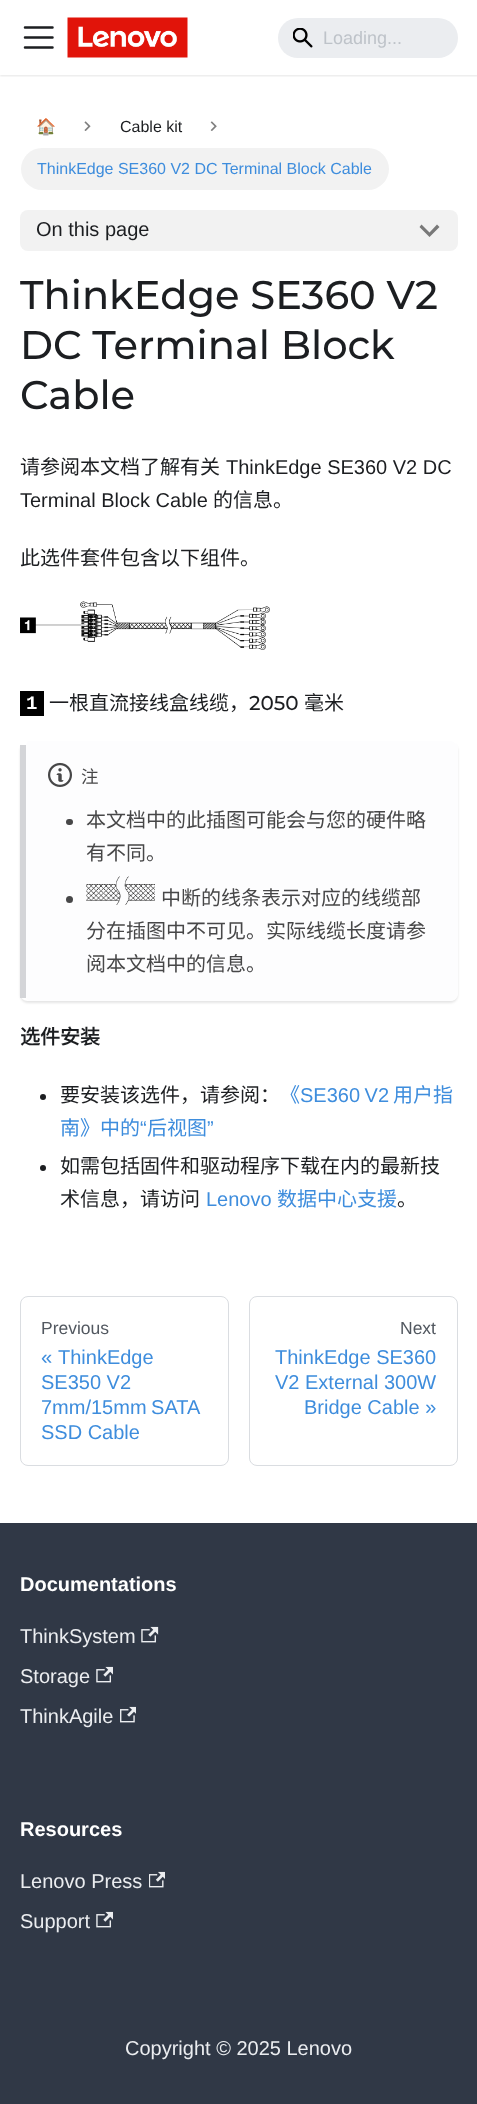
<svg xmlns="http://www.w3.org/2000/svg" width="477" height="2104">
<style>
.a{font:18px Liberation Sans;fill:#bec3c9}
.b{font:16px Noto Color Emoji;fill:#1c1e21}
.c{font:16px Liberation Sans;fill:#1c1e21}
.d{font:16px Liberation Sans;fill:#3e8ddd}
.e{font:20px Liberation Sans;fill:#1c1e21}
.f{font:500 40px Montserrat;fill:#1c1e21}
.g{font:20px Noto Sans CJK SC;fill:#1c1e21}
.h{font:bold 19px Liberation Mono;fill:#fff}
.i{font:500 20px Montserrat;fill:#1c1e21}
.j{font:17.5px Noto Sans CJK SC;fill:#474748}
.k{font:20px Noto Sans CJK SC;fill:#474748}
.l{font:bold 20px Noto Sans CJK SC;fill:#1c1e21}
.m{font:20px Noto Sans CJK SC;fill:#3e8ddd}
.n{font:20px Liberation Sans;fill:#3e8ddd}
.o{font:17.5px Liberation Sans;fill:#525860}
.p{font:bold 20px Liberation Sans;fill:#fff}
.q{font:20px Liberation Sans;fill:#ebedf0}
</style>
<defs>
<clipPath id="clip1"><path d="M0 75h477v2H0z"/></clipPath>
<clipPath id="clip2"><path d="M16 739h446v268h-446zm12 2h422c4.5 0 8 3.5 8 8v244c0 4.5-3.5 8-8 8h-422c-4.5 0-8-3.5-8-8v-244c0-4.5 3.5-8 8-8z" clip-rule="evenodd"/></clipPath>
</defs>
<rect width="100%" height="100%" fill="#fff"/>
<g clip-path="url(#clip1)">
<path fill="#0000001a" filter="blur(1px)" d="M0 1h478v75H0z"/>
</g>
<path fill="none" stroke="#1c1e21" stroke-width="2.5" stroke-linecap="round" d="M25 27.5h27.5m-27.5 10h27.5m-27.5 10h27.5"/>
<image href="1.png" x="67" y="17" width="121" height="41"/>
<rect fill="#ebedf0" x="278" y="18" width="180" height="40" rx="20"/>
<image href="2.png" x="293" y="28" width="20" height="20"/>
<image href="3.png" x="84" y="121" width="7" height="10"/>
<image href="4.png" x="210" y="121" width="7" height="10"/>
<rect fill="#f2f2f2" x="21" y="148" width="368" height="42" rx="21"/>
<rect fill="#f2f2f2" x="20" y="210" width="438" height="41" rx="8"/>
<path fill="#797979" d="M437 224.5l-7.5 8l-8-8l-2 2.5l10 10l10-10z"/>
<image href="5.png" x="20" y="601" width="250" height="49"/>
<path fill="#000" d="M20 691h24v25H20z"/>
<g clip-path="url(#clip2)">
<rect fill="#0000001a" filter="blur(1px)" x="20" y="743" width="438" height="260" rx="8"/>
</g>
<path fill="#fdfdfe" d="M28 741h422c4 0 8 4 8 8v244c0 5-4 8-8 8h-422c-1 0-2-3-2-8v-244c0-4 1-8 2-8z"/>
<path fill="#d4d5d8" d="M20 745h6v253H20z"/>
<image href="6.png" x="48" y="762" width="24" height="25"/>
<rect fill="#474748" x="66" y="819" width="7" height="6" rx="3"/>
<circle fill="#474748" cx="69.5" cy="899.5" r="3.5"/>
<image href="7.png" x="86" y="876" width="69" height="29"/>
<circle fill="#1c1e21" cx="43" cy="1097" r="3"/>
<circle fill="#1c1e21" cx="43" cy="1168" r="3"/>
<rect fill="none" stroke="#dadde1" x="20.5" y="1296.5" width="208" height="169" rx="7.5"/>
<rect fill="none" stroke="#dadde1" x="249.5" y="1296.5" width="208" height="169" rx="7.5"/>
<path fill="#303846" d="M0 1523h477v581H0z"/>
<image href="8.png" x="141" y="1626" width="18" height="17"/>
<image href="9.png" x="96" y="1666" width="17" height="17"/>
<image href="10.png" x="120" y="1706" width="16" height="17"/>
<image href="11.png" x="149" y="1871" width="16" height="17"/>
<image href="9.png" x="96" y="1911" width="17" height="17"/>
<text class="a" x="323" y="44">Loading...</text>
<text class="b" x="36" y="132">🏠</text>
<text class="c" x="120" y="132">Cable kit</text>
<text class="d" x="37" y="174">ThinkEdge SE360 V2 DC Terminal Block Cable</text>
<text class="e" x="36" y="236">On this page</text>
<text class="f" x="20" y="309">ThinkEdge SE360 V2</text>
<text class="f" x="20" y="359">DC Terminal Block</text>
<text class="f" x="20" y="409">Cable</text>
<text class="g" x="20" y="474">请参阅本文档了解有关</text>
<text class="e" x="226" y="474">ThinkEdge SE360 V2 DC</text>
<text class="e" x="20" y="507">Terminal Block Cable</text>
<text class="g" x="213" y="507">的信息。</text>
<text class="g" x="20" y="565">此选件套件包含以下组件。</text>
<text class="h" x="26" y="709">1</text>
<text class="g" x="49" y="710">一根直流接线盒线缆，</text>
<text class="i" x="249" y="710">2050</text>
<text class="g" x="304" y="710">毫米</text>
<text class="j" x="81" y="783">注</text>
<text class="k" x="86" y="827">本文档中的此插图可能会与您的硬件略</text>
<text class="k" x="86" y="860">有不同。</text>
<text class="k" x="161" y="905">中断的线条表示对应的线缆部</text>
<text class="k" x="86" y="938">分在插图中不可见。实际线缆长度请参</text>
<text class="k" x="86" y="971">阅本文档中的信息。</text>
<text class="l" x="20" y="1044">选件安装</text>
<text class="g" x="60" y="1102">要安装该选件，请参阅：</text>
<text class="m" x="280" y="1102">《</text>
<text class="n" x="300" y="1102" word-spacing="-1">SE360 V2</text>
<text class="m" x="393" y="1102">用户指</text>
<text class="m" x="60" y="1135">南》中的</text>
<text class="n" x="140" y="1135">“</text>
<text class="m" x="147" y="1135">后视图</text>
<text class="n" x="207" y="1135">”</text>
<text class="g" x="60" y="1173">如需包括固件和驱动程序下载在内的最新技</text>
<text class="g" x="60" y="1206">术信息，请访问</text>
<text class="n" x="206" y="1206">Lenovo</text>
<text class="m" x="277" y="1206">数据中心支援</text>
<text class="g" x="397" y="1206">。</text>
<text class="o" x="41" y="1334">Previous</text>
<text class="n" x="41" y="1364">«</text>
<text class="n" x="58" y="1364">ThinkEdge</text>
<text class="n" x="41" y="1389">SE350 V2</text>
<text class="n" x="41" y="1414" word-spacing="-1">7mm/15mm SATA</text>
<text class="n" x="41" y="1439">SSD Cable</text>
<text class="o" x="400" y="1334">Next</text>
<text class="n" x="275" y="1364">ThinkEdge SE360</text>
<text class="n" x="275" y="1389">V2 External 300W</text>
<text class="n" x="304" y="1414">Bridge Cable »</text>
<text class="p" x="20" y="1591">Documentations</text>
<text class="q" x="20" y="1643">ThinkSystem</text>
<text class="q" x="20" y="1683">Storage</text>
<text class="q" x="20" y="1723">ThinkAgile</text>
<text class="p" x="20" y="1836">Resources</text>
<text class="q" x="20" y="1888">Lenovo Press</text>
<text class="q" x="20" y="1928">Support</text>
<text class="q" x="125" y="2055">Copyright © 2025 Lenovo</text>
</svg>
